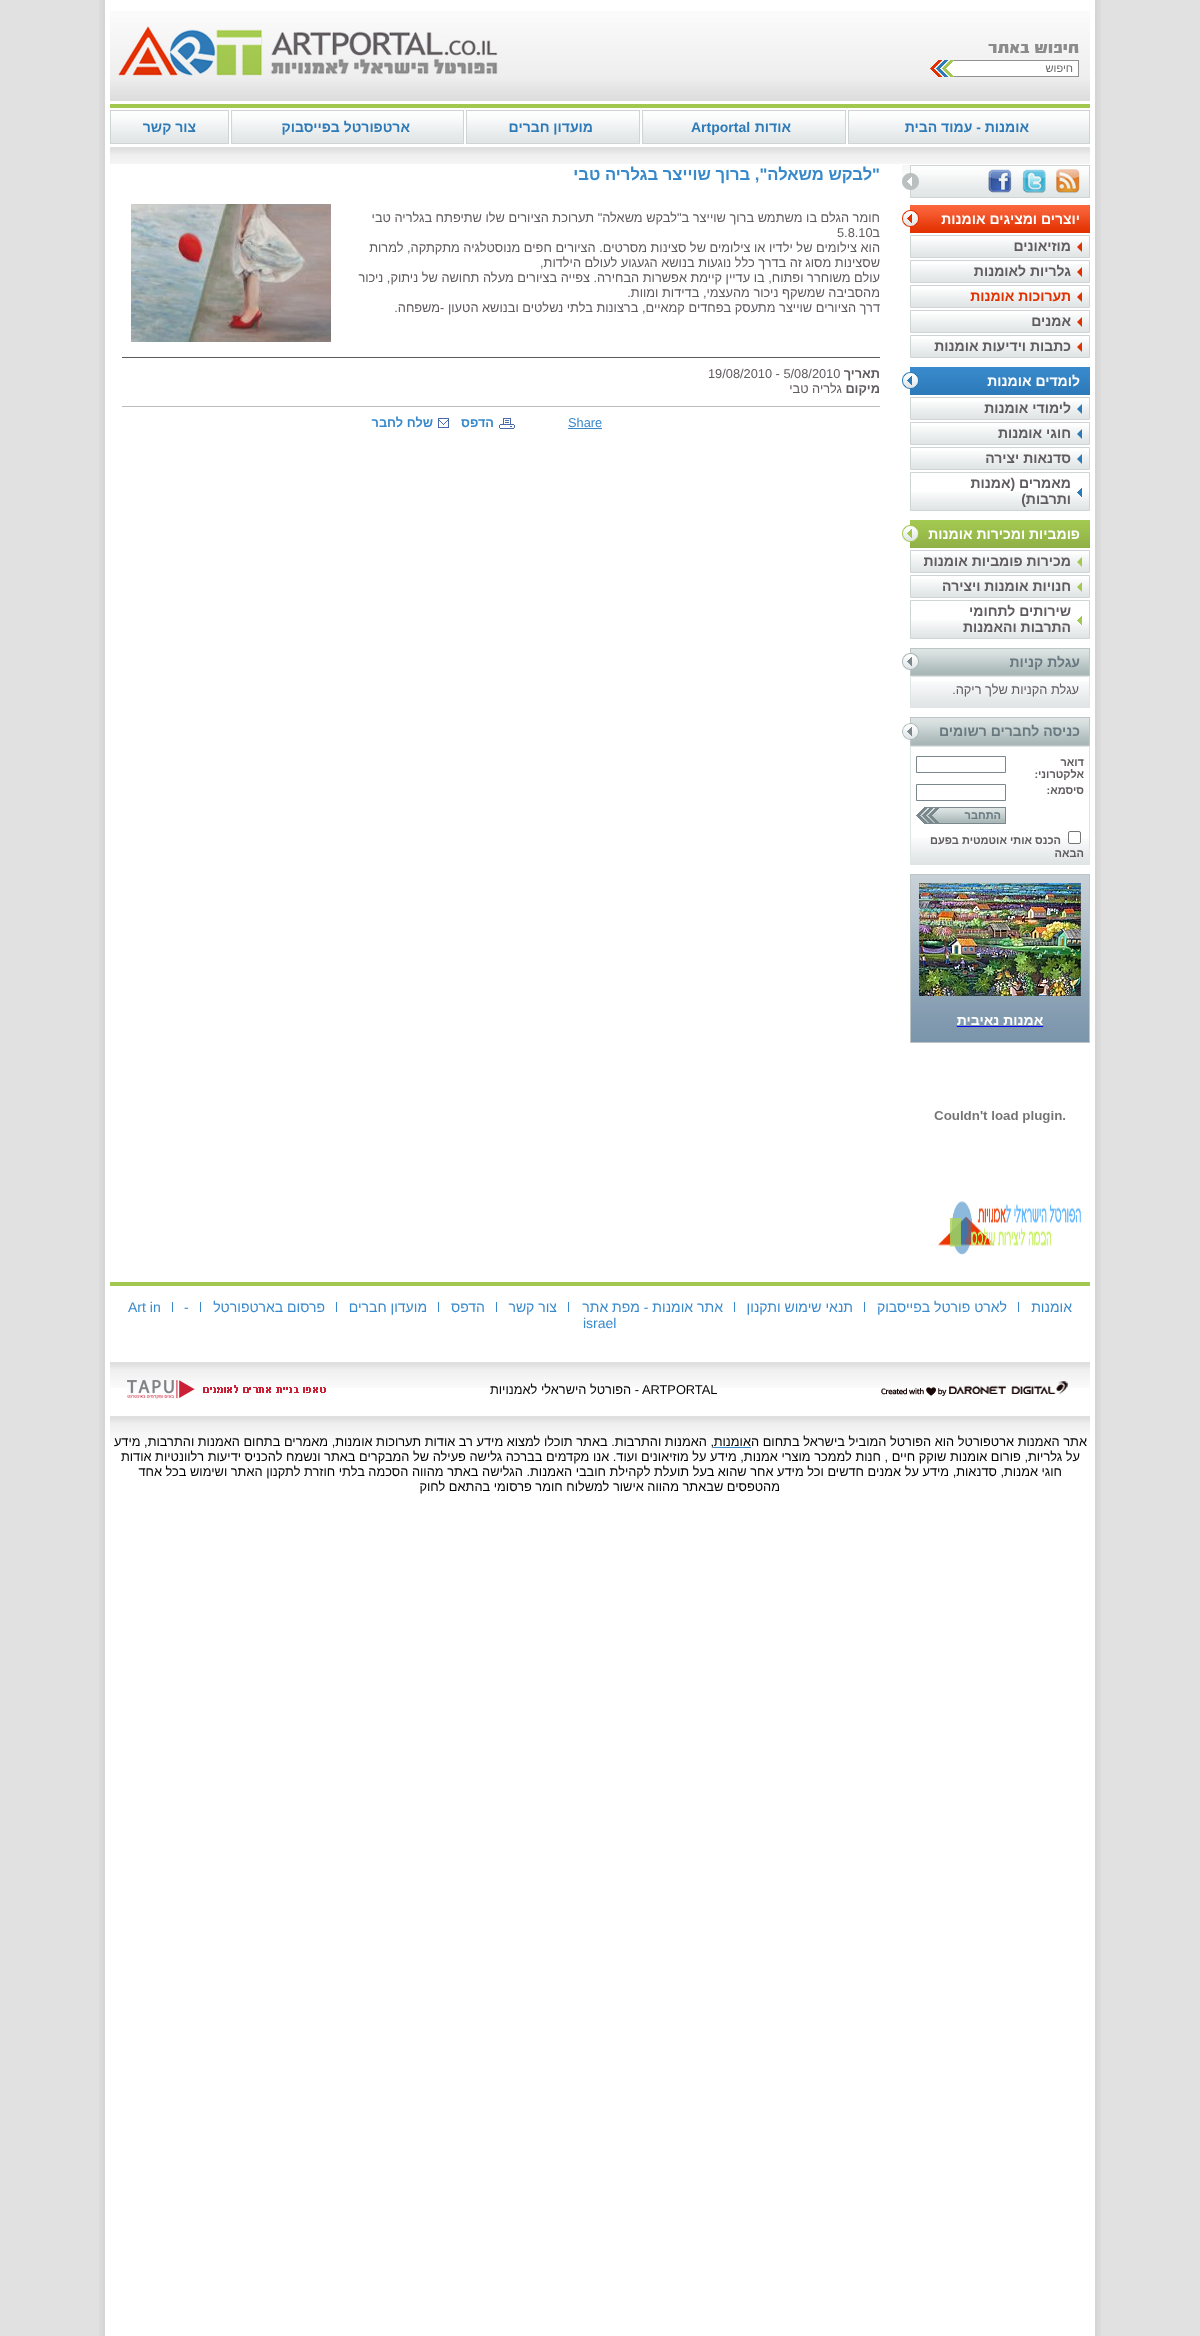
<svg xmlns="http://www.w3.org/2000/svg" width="1200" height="2336">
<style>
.a{font:11px Liberation Sans;direction:rtl;fill:#676767}
.b{font:bold 14px Liberation Sans;direction:rtl;fill:#2e7ab7}
.c{font:bold 14px Liberation Sans;fill:#2e7ab7}
.d{font:bold 14px Liberation Sans;direction:rtl;fill:#fff}
.e{font:bold 14px Liberation Sans;direction:rtl;fill:#605b5f}
.f{font:bold 14px Liberation Sans;direction:rtl;fill:#e23100}
.g{font:bold 14px Liberation Sans;direction:rtl;fill:#687980}
.h{font:12.8px Liberation Sans;direction:rtl;fill:#605b5f}
.i{font:bold 11px Liberation Sans;direction:rtl;fill:#605b5f}
.j{font:bold 11px Liberation Sans;direction:rtl;fill:#687980}
.k{font:bold 16.6px Liberation Sans;direction:rtl;fill:#3889cb}
.l{font:12.8px Liberation Sans;fill:#605b5f}
.m{font:bold 12.8px Liberation Sans;direction:rtl;fill:#605b5f}
.n{font:12.8px Liberation Sans;fill:#3889cb}
.o{font:bold 12.8px Liberation Sans;direction:rtl;fill:#3889cb}
.p{font:14px Liberation Sans;direction:rtl;fill:#3889cb}
.q{font:14px Liberation Sans;fill:#3889cb}
.r{font:12.8px Liberation Sans;fill:#020202}
.s{font:12.8px Liberation Sans;direction:rtl;fill:#020202}
</style>
<rect width="100%" height="100%" fill="#e1e1e1"/>
<image href="1.png" x="99" y="0" width="1002" height="2336"/>
<image href="2.png" x="110" y="11" width="980" height="97"/>
<image href="3.png" x="988" y="44" width="91" height="9"/>
<path fill="#fff" d="M954 61h124v15H954z"/>
<path fill="#909090" d="M954 60h125v1H954z"/>
<path fill="#909090" d="M1078 60h1v17H1078z"/>
<path fill="#909090" d="M954 76h125v1H954z"/>
<image href="4.png" x="930" y="60" width="24" height="17"/>
<image href="5.png" x="118" y="24" width="380" height="52"/>
<image href="6.png" x="110" y="147" width="980" height="17"/>
<path fill="#cfd4d5" d="M1089 110h1v34H1089z"/>
<path fill="#cfd4d5" d="M110 110h1v34H110z"/>
<image href="7.png" x="845" y="110" width="244" height="34"/>
<image href="8.png" x="639" y="110" width="206" height="34"/>
<image href="9.png" x="463" y="110" width="176" height="34"/>
<image href="10.png" x="228" y="110" width="235" height="34"/>
<image href="11.png" x="111" y="110" width="117" height="34"/>
<image href="12.png" x="902" y="165" width="188" height="33"/>
<image href="13.png" x="1056" y="169" width="24" height="24"/>
<image href="14.png" x="1022" y="169" width="24" height="24"/>
<image href="15.png" x="988" y="169" width="24" height="24"/>
<image href="16.png" x="902" y="205" width="188" height="28"/>
<image href="17.png" x="911" y="239" width="178" height="18"/>
<path fill="none" stroke="#cfd4d5" d="M910.5 235.5h179v22H910.5z"/>
<image href="18.png" x="1077" y="242" width="5" height="10"/>
<image href="17.png" x="911" y="264" width="178" height="18"/>
<path fill="none" stroke="#cfd4d5" d="M910.5 260.5h179v22H910.5z"/>
<image href="18.png" x="1077" y="267" width="5" height="10"/>
<image href="17.png" x="911" y="289" width="178" height="18"/>
<path fill="none" stroke="#cfd4d5" d="M910.5 285.5h179v22H910.5z"/>
<image href="18.png" x="1077" y="292" width="5" height="10"/>
<image href="17.png" x="911" y="314" width="178" height="18"/>
<path fill="none" stroke="#cfd4d5" d="M910.5 310.5h179v22H910.5z"/>
<image href="18.png" x="1077" y="317" width="5" height="10"/>
<image href="17.png" x="911" y="339" width="178" height="18"/>
<path fill="none" stroke="#cfd4d5" d="M910.5 335.5h179v22H910.5z"/>
<image href="18.png" x="1077" y="342" width="5" height="10"/>
<image href="19.png" x="902" y="367" width="188" height="28"/>
<image href="17.png" x="911" y="401" width="178" height="18"/>
<path fill="none" stroke="#cfd4d5" d="M910.5 397.5h179v22H910.5z"/>
<image href="20.png" x="1077" y="404" width="5" height="10"/>
<image href="17.png" x="911" y="426" width="178" height="18"/>
<path fill="none" stroke="#cfd4d5" d="M910.5 422.5h179v22H910.5z"/>
<image href="20.png" x="1077" y="429" width="5" height="10"/>
<image href="17.png" x="911" y="451" width="178" height="18"/>
<path fill="none" stroke="#cfd4d5" d="M910.5 447.5h179v22H910.5z"/>
<image href="20.png" x="1077" y="454" width="5" height="10"/>
<image href="17.png" x="911" y="492" width="178" height="18"/>
<path fill="none" stroke="#cfd4d5" d="M910.5 472.5h179v38H910.5z"/>
<image href="21.png" x="1077" y="488" width="5" height="9"/>
<image href="22.png" x="902" y="520" width="188" height="28"/>
<image href="17.png" x="911" y="554" width="178" height="18"/>
<path fill="none" stroke="#cfd4d5" d="M910.5 550.5h179v22H910.5z"/>
<image href="23.png" x="1077" y="557" width="5" height="10"/>
<image href="17.png" x="911" y="579" width="178" height="18"/>
<path fill="none" stroke="#cfd4d5" d="M910.5 575.5h179v22H910.5z"/>
<image href="23.png" x="1077" y="582" width="5" height="10"/>
<image href="17.png" x="911" y="620" width="178" height="18"/>
<path fill="none" stroke="#cfd4d5" d="M910.5 600.5h179v38H910.5z"/>
<image href="24.png" x="1077" y="616" width="5" height="9"/>
<image href="25.png" x="902" y="648" width="188" height="28"/>
<image href="26.png" x="911" y="681" width="178" height="26"/>
<path fill="none" stroke="#dfe4e5" d="M910.5 676.5h179v31H910.5z"/>
<image href="27.png" x="902" y="717" width="188" height="29"/>
<image href="26.png" x="911" y="838" width="178" height="26"/>
<path fill="none" stroke="#dfe4e5" d="M910.5 746.5h179v118H910.5z"/>
<path fill="none" stroke="#7a878c" d="M916.5 756.5h89v16H916.5z"/>
<path fill="none" stroke="#7a878c" d="M916.5 784.5h89v16H916.5z"/>
<image href="28.png" x="916" y="807" width="90" height="17"/>
<rect fill="#fff" stroke="#767676" x="1068.5" y="831.5" width="12" height="12" rx="1.5"/>
<image href="29.png" x="910" y="874" width="180" height="169"/>
<image href="30.png" x="934" y="1111" width="131" height="12"/>
<image href="31.png" x="938" y="1201" width="143" height="54"/>
<image href="32.png" x="131" y="204" width="200" height="138"/>
<path fill="#5b5b5f" d="M122 357h758v1H122z"/>
<path fill="#bcbcbc" d="M122 406h758v1H122z"/>
<path fill="#3889cb" d="M568 428h34v1H568z"/>
<image href="33.png" x="499" y="418" width="16" height="11"/>
<image href="34.png" x="438" y="418" width="11" height="10"/>
<path fill="#a3c850" d="M110 1282h980v4H110z"/>
<path fill="#3889cb" d="M1018 1302h1v10H1018z"/>
<path fill="#3889cb" d="M864 1302h1v10H864z"/>
<path fill="#3889cb" d="M734 1302h1v10H734z"/>
<path fill="#3889cb" d="M568 1302h1v10H568z"/>
<path fill="#3889cb" d="M496 1302h1v10H496z"/>
<path fill="#3889cb" d="M438 1302h1v10H438z"/>
<path fill="#3889cb" d="M336 1302h1v10H336z"/>
<path fill="#3889cb" d="M200 1302h1v10H200z"/>
<path fill="#3889cb" d="M172 1302h1v10H172z"/>
<image href="35.png" x="110" y="1362" width="980" height="26"/>
<image href="36.png" x="881" y="1381" width="187" height="15"/>
<image href="37.png" x="127" y="1380" width="199" height="19"/>
<image href="35.png" x="110" y="1416" width="980" height="26"/>
<path fill="#3889cb" d="M713 1447h38v1H713z"/>
<text class="a" x="1073" y="72">חיפוש</text>
<text class="b" x="1029" y="132">אומנות - עמוד הבית</text>
<text class="b" x="791" y="132">אודות</text>
<text class="c" x="691" y="132">Artportal</text>
<text class="b" x="593" y="132">מועדון חברים</text>
<text class="b" x="410" y="132">ארטפורטל בפייסבוק</text>
<text class="b" x="196" y="132">צור קשר</text>
<text class="d" x="1080" y="224">יוצרים ומציגים אומנות</text>
<text class="e" x="1071" y="251">מוזיאונים</text>
<text class="e" x="1071" y="276">גלריות לאומנות</text>
<text class="f" x="1071" y="301">תערוכות אומנות</text>
<text class="e" x="1071" y="326">אמנים</text>
<text class="e" x="1071" y="351">כתבות וידיעות אומנות</text>
<text class="d" x="1080" y="386">לומדים אומנות</text>
<text class="e" x="1071" y="413">לימודי אומנות</text>
<text class="e" x="1071" y="438">חוגי אומנות</text>
<text class="e" x="1071" y="463">סדנאות יצירה</text>
<text class="e" x="1071" y="488">מאמרים (אמנות</text>
<text class="e" x="1071" y="504">ותרבות)</text>
<text class="d" x="1080" y="539">פומביות ומכירות אומנות</text>
<text class="e" x="1071" y="566">מכירות פומביות אומנות</text>
<text class="e" x="1071" y="591">חנויות אומנות ויצירה</text>
<text class="e" x="1071" y="616">שירותים לתחומי</text>
<text class="e" x="1071" y="632">התרבות והאמנות</text>
<text class="g" x="1080" y="667">עגלת קניות</text>
<text class="h" x="1079" y="694">עגלת הקניות שלך ריקה.</text>
<text class="g" x="1080" y="736">כניסה לחברים רשומים</text>
<text class="i" x="1084" y="766">דואר</text>
<text class="i" x="1084" y="778">אלקטרוני:</text>
<text class="i" x="1084" y="794">סיסמא:</text>
<text class="j" x="1001" y="819">התחבר</text>
<text class="i" x="1061" y="844">הכנס אותי אוטמטית בפעם</text>
<text class="i" x="1084" y="857">הבאה</text>
<text class="k" x="880" y="180">"לבקש משאלה", ברוך שוייצר בגלריה טבי</text>
<text class="h" x="880" y="222">חומר הגלם בו משתמש ברוך שוייצר ב"לבקש משאלה" תערוכת הציורים שלו שתיפתח בגלריה טבי</text>
<text class="h" x="880" y="237">ב</text>
<text class="l" x="837" y="237">5.8.10</text>
<text class="h" x="880" y="252">הוא צילומים של ילדיו או צילומים של סצינות מסרטים. הציורים חפים מנוסטלגיה מתקתקה, למרות</text>
<text class="h" x="880" y="267">שסצינות מסוג זה בדרך כלל נוגעות בנושא הגעגוע לעולם הילדות,</text>
<text class="h" x="880" y="282">עולם משוחרר ופתוח, בו עדיין קיימת אפשרות הבחירה. צפייה בציורים מעלה תחושה של ניתוק, ניכור</text>
<text class="h" x="880" y="297">מהסביבה שמשקף ניכור מהעצמי, בדידות ומוות.</text>
<text class="h" x="880" y="312">דרך הציורים שוייצר מתעסק בפחדים קמאיים, ברצונות בלתי נשלטים ובנושא הטעון -משפחה.</text>
<text class="m" x="880" y="378">תאריך</text>
<text class="l" x="708" y="378">19/08/2010 - 5/08/2010</text>
<text class="m" x="880" y="393">מיקום</text>
<text class="h" x="842" y="393">גלריה טבי</text>
<text class="n" x="568" y="427">Share</text>
<text class="o" x="494" y="427">הדפס</text>
<text class="o" x="433" y="427">שלח לחבר</text>
<text class="p" x="1072" y="1312">אומנות</text>
<text class="p" x="1007" y="1312">לארט פורטל בפייסבוק</text>
<text class="p" x="853" y="1312">תנאי שימוש ותקנון</text>
<text class="p" x="723" y="1312">אתר אומנות - מפת אתר</text>
<text class="p" x="557" y="1312">צור קשר</text>
<text class="p" x="485" y="1312">הדפס</text>
<text class="p" x="427" y="1312">מועדון חברים</text>
<text class="p" x="325" y="1312">פרסום בארטפורטל</text>
<text class="q" x="184" y="1312">-</text>
<text class="q" x="128" y="1312">Art in</text>
<text class="q" x="583" y="1328">israel</text>
<text class="r" x="642" y="1394">ARTPORTAL</text>
<text class="s" x="639" y="1394">- הפורטל הישראלי לאמנויות</text>
<text class="s" x="1087" y="1446">אתר האמנות ארטפורטל הוא הפורטל המוביל בישראל בתחום ה</text>
<text class="s" x="751" y="1446">אומנות</text>
<text class="s" x="714" y="1446">, האמנות והתרבות. באתר תוכלו למצוא מידע רב אודות תערוכות אומנות, מאמרים בתחום האמנות והתרבות, מידע</text>
<text class="s" x="1080" y="1461">על גלריות, פורום אומנות שוקק חיים , חנות לממכר מוצרי אמנות, מידע על מוזיאונים ועוד. אנו מקדמים בברכה גלישה פעילה של המבקרים באתר ונשמח להכניס ידיעות רלוונטיות אודות</text>
<text class="s" x="1062" y="1476">חוגי אמנות, סדנאות, מידע על אמנים חדשים וכל מידע אחר שהוא בעל תועלת לקהילת חובבי האמנות. הגלישה באתר מהווה הסכמה בלתי חוזרת לתקנון האתר ושימוש בכל אחד</text>
<text class="s" x="780" y="1491">מהטפסים שבאתר מהווה אישור למשלוח חומר פרסומי בהתאם לחוק</text>
</svg>
